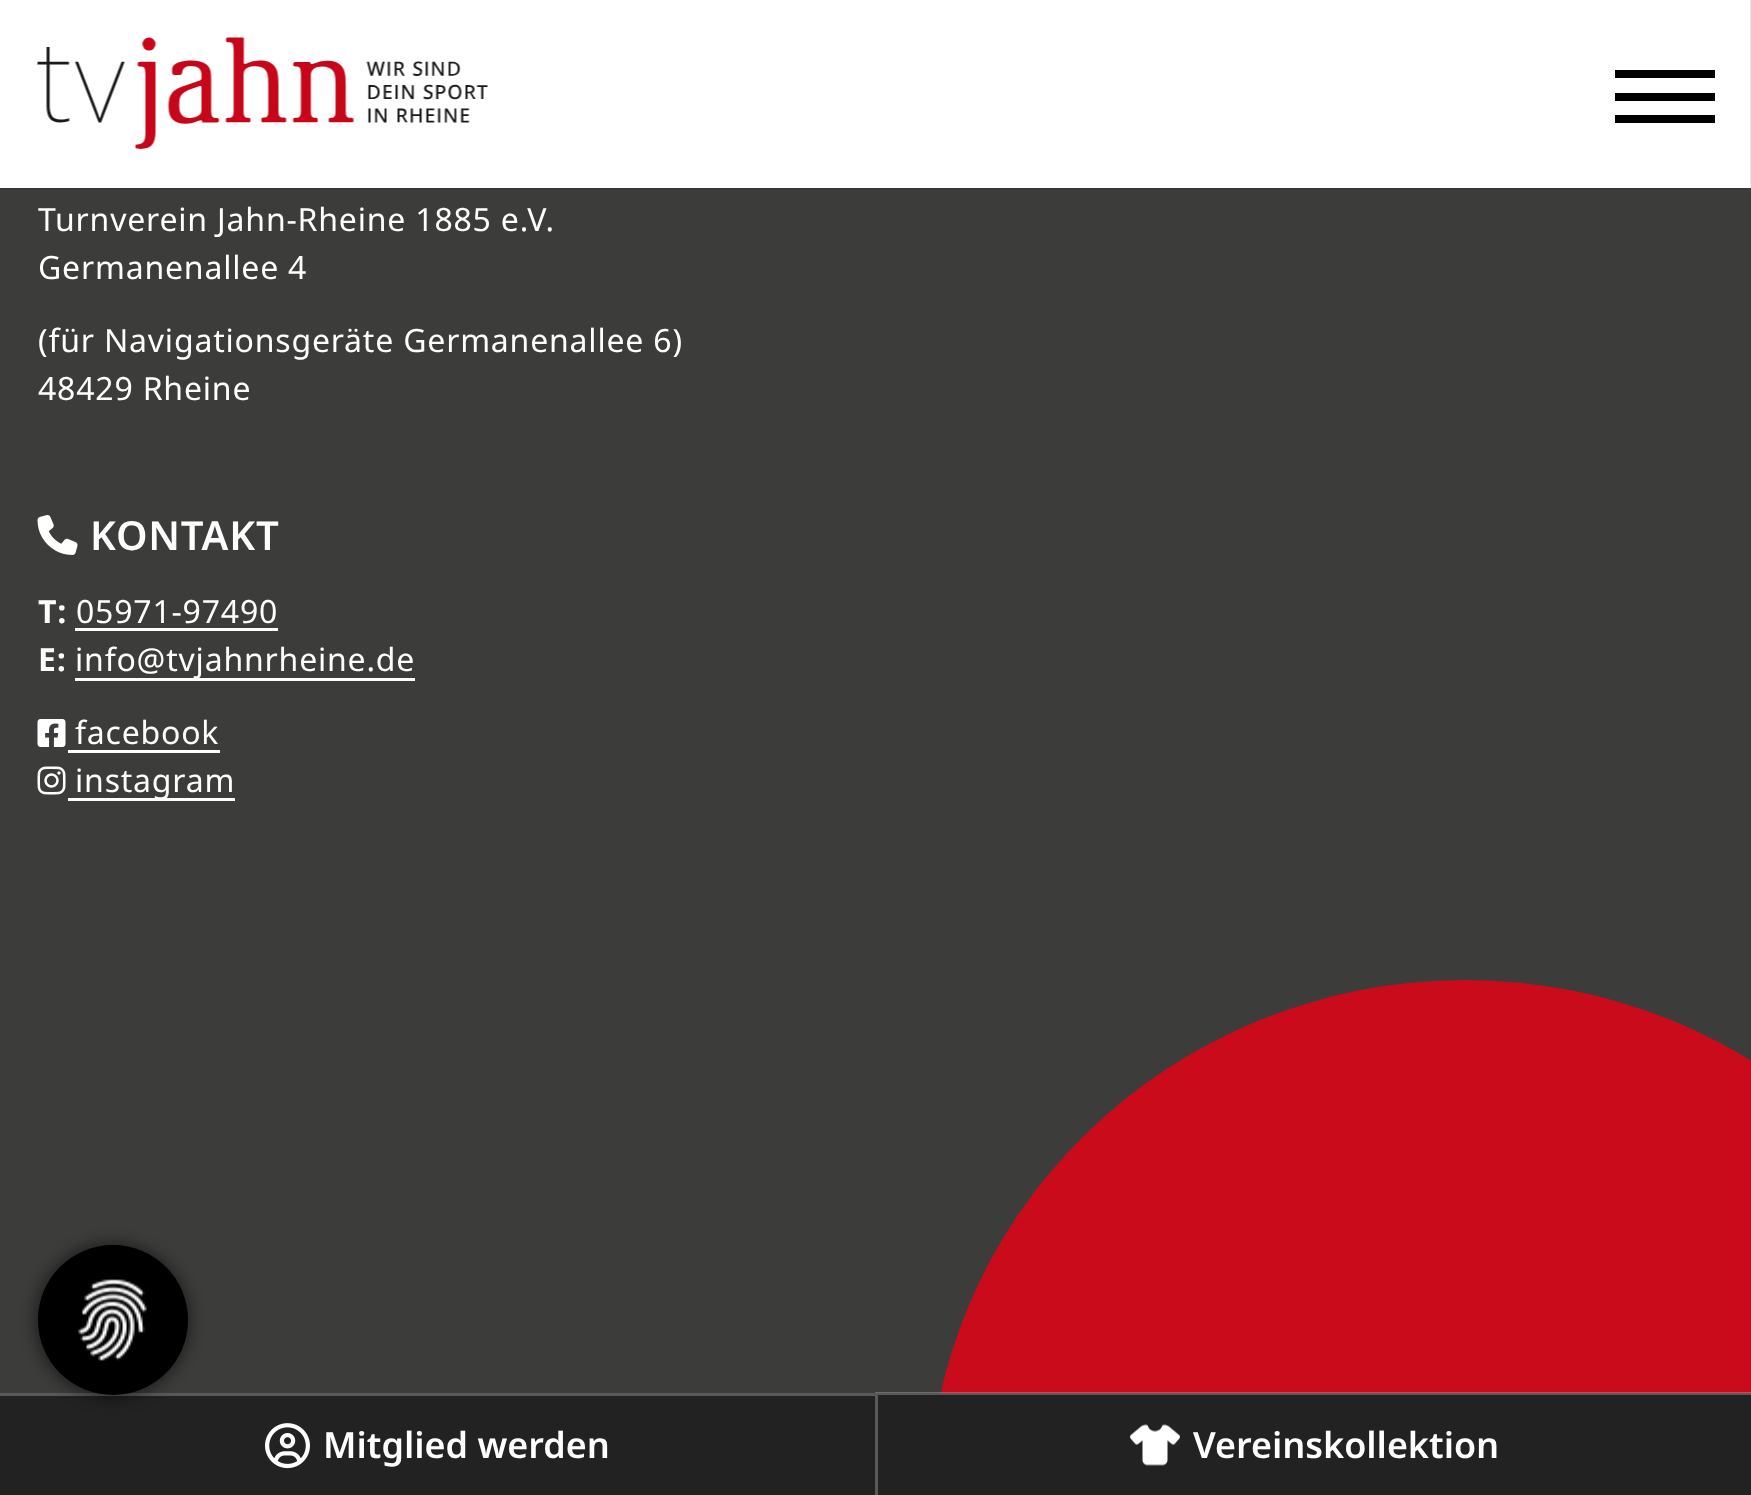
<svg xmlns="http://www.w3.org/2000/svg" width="1751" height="1495">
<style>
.a{font:32px Noto Sans;letter-spacing:0.8px;fill:#fff}
.b{font:600 40px Noto Sans;letter-spacing:0.8px;fill:#fff}
.c{font:bold 32px Noto Sans;letter-spacing:0.8px;fill:#fff}
.d{font:600 36px Noto Sans;fill:#fff}
</style>
<rect width="100%" height="100%" fill="#3c3c3b"/>
<path fill="none" stroke="#00000014" stroke-width="3" d="M-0.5 -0.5h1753v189H-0.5z"/>
<path fill="#fff" d="M0 0h1751v188H0z"/>
<image href="1.png" x="37" y="37" width="451" height="112"/>
<path fill="#000" d="M1615 93h100v8H1615z"/>
<path fill="#000" d="M1615 70h100v8H1615z"/>
<path fill="#000" d="M1615 115h100v8H1615z"/>
<image href="2.png" x="37" y="515" width="41" height="40"/>
<path fill="#fff" d="M75 628h203v3H75z"/>
<path fill="#fff" d="M75 678h340v3H75z"/>
<image href="3.png" x="37" y="719" width="29" height="28"/>
<path fill="#fff" d="M68 750h152v3H68z"/>
<image href="4.png" x="37" y="766" width="29" height="29"/>
<path fill="#fff" d="M68 798h167v3H68z"/>
<rect fill="#c90b1c" x="928" y="980" width="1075" height="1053" rx="537.5"/>
<path fill="none" stroke="#00000014" stroke-width="3" d="M1751.5 -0.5h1v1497H1751.5z"/>
<path fill="#222" d="M0 1396h875v99H0z"/>
<path fill="#595959" d="M0 1393h875v3H0z"/>
<rect fill="#00000080" filter="blur(7.5px)" x="35" y="1243" width="155" height="155" rx="77.5"/>
<circle fill="#000" cx="113" cy="1320" r="75"/>
<image href="5.png" x="78" y="1279" width="69" height="82"/>
<image href="6.png" x="265" y="1423" width="45" height="46"/>
<path fill="#222" d="M875 1393h876v102H875z"/>
<path fill="#ffffff40" d="M875 1392h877v3h-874z"/>
<path fill="#ffffff40" d="M875 1495v-103l3 3v100z"/>
<image href="7.png" x="1130" y="1424" width="50" height="42"/>
<text class="a" x="38" y="231">Turnverein Jahn-Rheine 1885 e.V.</text>
<text class="a" x="38" y="279">Germanenallee 4</text>
<text class="a" x="38" y="352">(für Navigationsgeräte Germanenallee 6)</text>
<text class="a" x="38" y="400">48429 Rheine</text>
<text class="b" x="90" y="550">KONTAKT</text>
<text class="c" x="38" y="623">T:</text>
<text class="a" x="76" y="623">05971-97490</text>
<text class="c" x="38" y="671">E:</text>
<text class="a" x="75" y="671">info@tvjahnrheine.de</text>
<text class="a" x="75" y="744">facebook</text>
<text class="a" x="75" y="792">instagram</text>
<text class="d" x="323" y="1458">Mitglied werden</text>
<text class="d" x="1193" y="1458">Vereinskollektion</text>
</svg>
